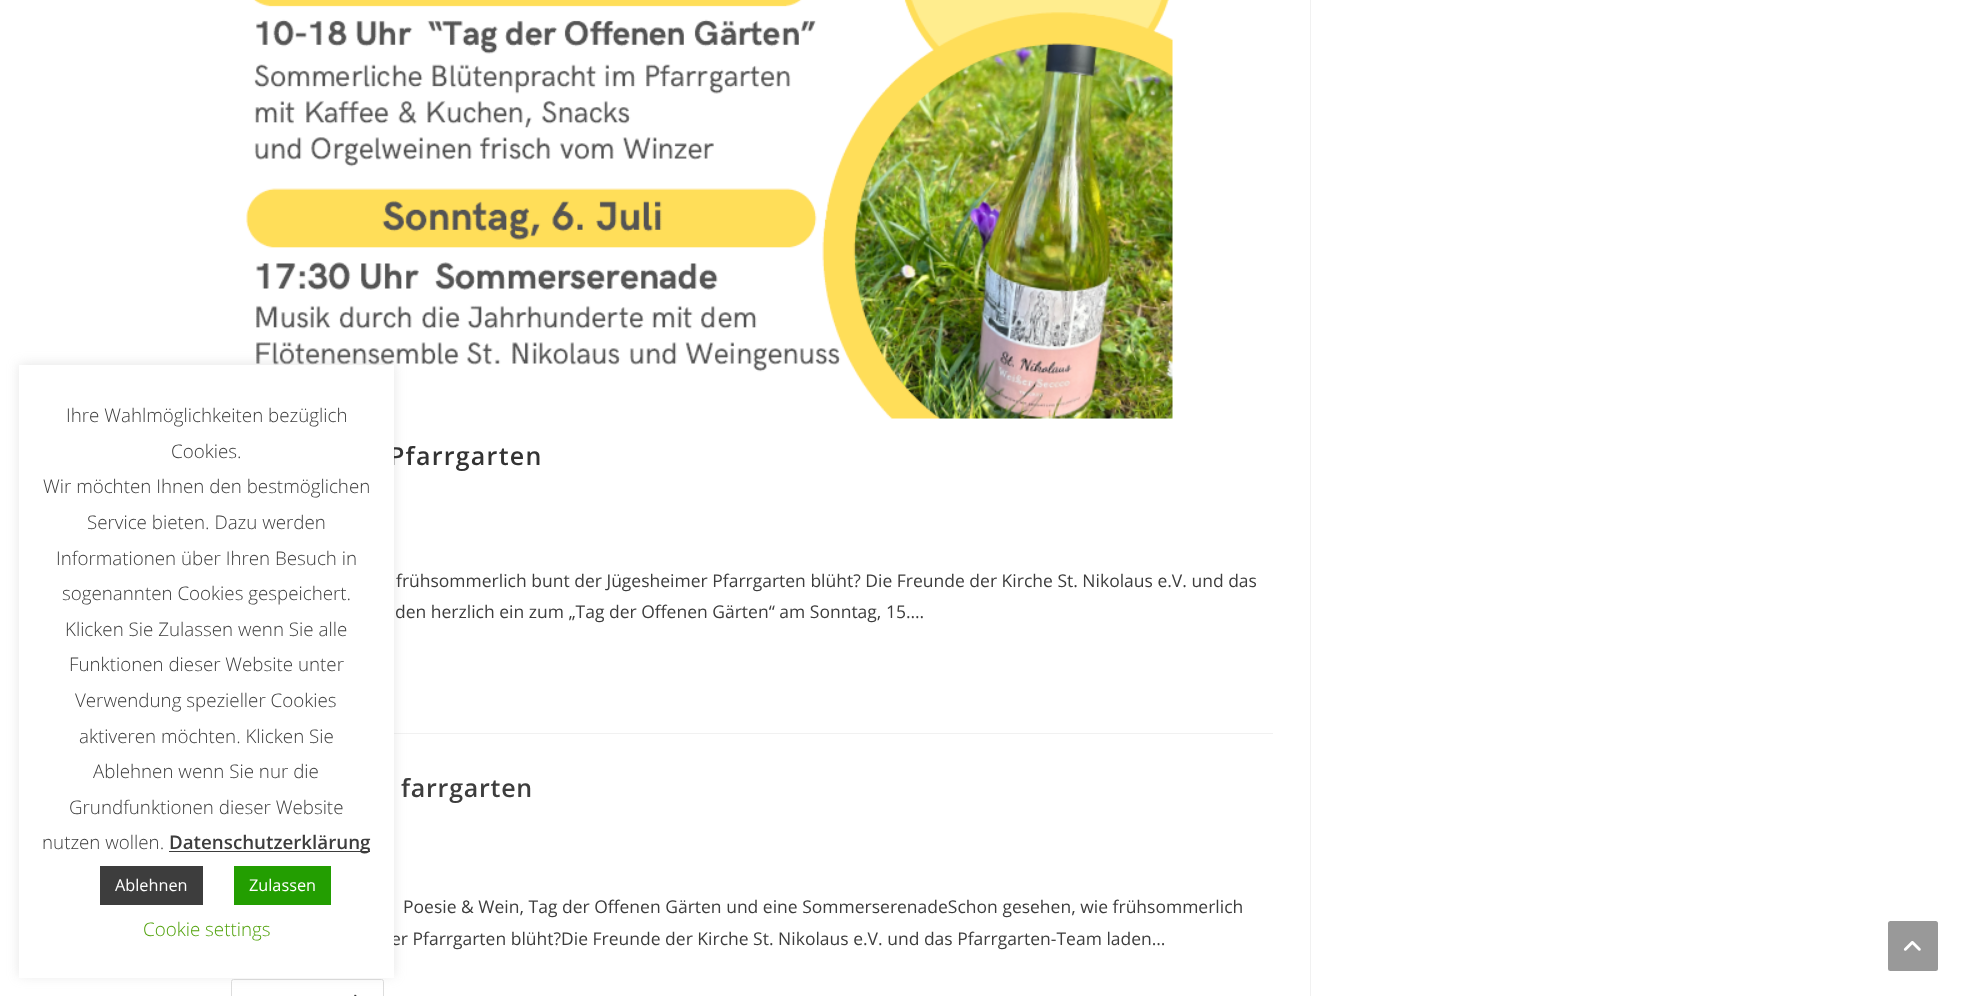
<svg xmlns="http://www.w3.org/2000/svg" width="1962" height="996">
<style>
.a{font:600 25px Open Sans;letter-spacing:1.25px;fill:#333}
.b{font:17.5px Open Sans;fill:#3d3d3d}
.c{font:600 25px Open Sans;letter-spacing:0.75px;fill:#3d3d3d}
.d{font:16.25px Open Sans;fill:#fff}
.e{font:300 18.75px Open Sans;fill:#53a30e}
.f{font:600 18.75px Open Sans;fill:#3d3d3d}
.g{font:300 18.75px Open Sans;fill:#3d3d3d}
</style>
<rect width="100%" height="100%" fill="#fff"/>
<path fill="#f1f1f1" d="M394 733h879v1H394z"/>
<image href="1.png" x="246" y="0" width="927" height="419"/>
<rect fill="none" stroke="#ddd" x="231.5" y="979.5" width="152" height="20" rx="2"/>
<image href="2.png" x="354" y="994" width="3" height="2"/>
<path fill="#acabab4d" filter="blur(6px)" d="M19 364h375v612H19z"/>
<path fill="#f1f1f1" d="M1310 0h1v996H1310z"/>
<rect fill="#999" x="1888" y="921" width="50" height="50" rx="2.5"/>
<image href="3.png" x="1903" y="941" width="18" height="10"/>
<text class="a" x="389" y="465">Pfarrgarten</text>
<text class="b" x="396" y="587">frühsommerlich bunt der Jügesheimer Pfarrgarten blüht? Die Freunde der Kirche St. Nikolaus e.V. und das</text>
<text class="b" x="395" y="618">den herzlich ein zum „Tag der Offenen Gärten“ am Sonntag, 15.…</text>
<text class="c" x="401" y="797">farrgarten</text>
<text class="b" x="403" y="913">Poesie &amp; Wein, Tag der Offenen Gärten und eine SommerserenadeSchon gesehen, wie frühsommerlich</text>
<text class="b" x="391" y="945">er Pfarrgarten blüht?Die Freunde der Kirche St. Nikolaus e.V. und das Pfarrgarten-Team laden…</text>
<path fill="#fff" d="M19 365h375v613H19z"/>
<path fill="#239e01" d="M234 866h97v39H234z"/>
<text class="d" x="249" y="891">Zulassen</text>
<path fill="#3d3d3d" d="M100 866h103v39H100z"/>
<text class="d" x="115" y="891">Ablehnen</text>
<text class="e" x="143" y="936">Cookie settings</text>
<path fill="#3d3d3d" d="M169 851h201v1H169z"/>
<text class="f" x="169" y="849">Datenschutzerklärung</text>
<text class="g" x="42" y="849">nutzen wollen.</text>
<text class="g" x="69" y="814">Grundfunktionen dieser Website</text>
<text class="g" x="93" y="778">Ablehnen wenn Sie nur die</text>
<text class="g" x="79" y="743">aktiveren möchten. Klicken Sie</text>
<text class="g" x="75" y="707">Verwendung spezieller Cookies</text>
<text class="g" x="69" y="671">Funktionen dieser Website unter</text>
<text class="g" x="65" y="636">Klicken Sie Zulassen wenn Sie alle</text>
<text class="g" x="62" y="600">sogenannten Cookies gespeichert.</text>
<text class="g" x="56" y="565">Informationen über Ihren Besuch in</text>
<text class="g" x="87" y="529">Service bieten. Dazu werden</text>
<text class="g" x="43" y="493">Wir möchten Ihnen den bestmöglichen</text>
<text class="g" x="171" y="458">Cookies.</text>
<text class="g" x="66" y="422">Ihre Wahlmöglichkeiten bezüglich</text>
</svg>
